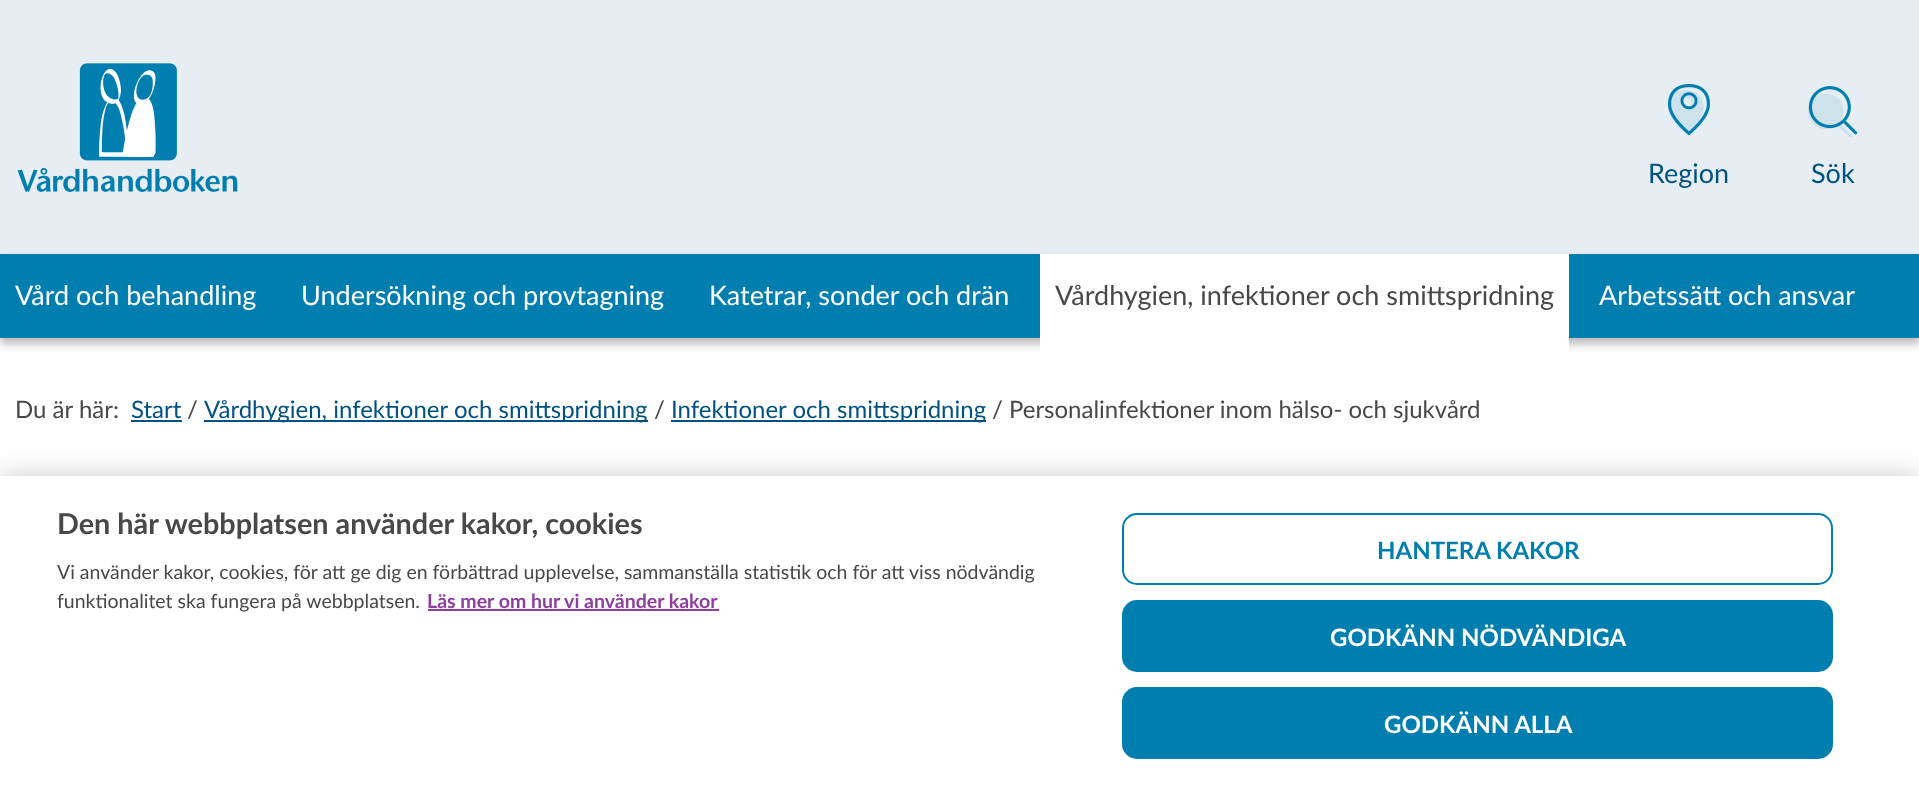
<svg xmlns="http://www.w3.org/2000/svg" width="1919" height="788">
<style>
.a{font:27px Lato;fill:#005280}
.b{font:27px Lato;fill:#fff}
.c{font:27px Lato;fill:#484848}
.d{font:24px Lato;fill:#484848}
.e{font:24px Lato;fill:#005280}
.f{font:bold 28.8px Lato;fill:#484848}
.g{font:19.5px Lato;fill:#484848}
.h{font:bold 19.5px Lato;fill:#8d3f9e}
.i{font:bold 24px Lato;fill:#007eb0}
.j{font:bold 24px Lato;fill:#fff}
</style>
<rect width="100%" height="100%" fill="#fff"/>
<path fill="#e6eef3" d="M0 0h1919v254H0z"/>
<image href="1.png" x="17" y="63" width="221" height="129"/>
<image href="2.png" x="1668" y="84" width="42" height="52"/>
<image href="3.png" x="1808" y="86" width="50" height="51"/>
<path fill="#1e1e1e4d" filter="blur(4.5px)" d="M0 260h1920v84H0z"/>
<path fill="#007eb0" d="M0 254h1919v84H0z"/>
<path fill="#fff" d="M1040 254h529v98H1040z"/>
<path fill="#005280" d="M131 420h51v2H131z"/>
<path fill="#005280" d="M204 420h444v2H204z"/>
<path fill="#005280" d="M671 420h315v2H671z"/>
<path fill="#00000033" filter="blur(13.5px)" d="M0 476h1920v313H0z"/>
<path fill="#fff" d="M0 476h1919v312H0z"/>
<path fill="#8d3f9e" d="M428 609h291v2H428z"/>
<rect fill="none" stroke="#007eb0" stroke-width="2" x="1123" y="514" width="709" height="70" rx="14"/>
<rect fill="#007eb0" stroke="#007eb0" stroke-width="2" x="1123" y="601" width="709" height="70" rx="14"/>
<rect fill="#007eb0" stroke="#007eb0" stroke-width="2" x="1123" y="688" width="709" height="70" rx="14"/>
<text class="a" x="1648" y="183">Region</text>
<text class="a" x="1811" y="183">Sök</text>
<text class="b" x="15" y="305">Vård och behandling</text>
<text class="b" x="301" y="305">Undersökning och provtagning</text>
<text class="b" x="709" y="305">Katetrar, sonder och drän</text>
<text class="c" x="1055" y="305">Vårdhygien, infektioner och smittspridning</text>
<text class="b" x="1599" y="305">Arbetssätt och ansvar</text>
<text class="d" x="15" y="418">Du är här:</text>
<text class="e" x="131" y="418">Start</text>
<text class="d" x="187" y="418">/</text>
<text class="e" x="204" y="418">Vårdhygien, infektioner och smittspridning</text>
<text class="d" x="654" y="418">/</text>
<text class="e" x="671" y="418">Infektioner och smittspridning</text>
<text class="d" x="992" y="418">/ Personalinfektioner inom hälso- och sjukvård</text>
<text class="f" x="57" y="534">Den här webbplatsen använder kakor, cookies</text>
<text class="g" x="57" y="579">Vi använder kakor, cookies, för att ge dig en förbättrad upplevelse,</text>
<text class="g" x="624" y="579">sammanställa statistik och för att viss nödvändig</text>
<text class="g" x="57" y="608">funktionalitet ska fungera på webbplatsen.</text>
<text class="h" x="427" y="608">Läs mer om hur vi använder kakor</text>
<text class="i" x="1377" y="559">HANTERA KAKOR</text>
<text class="j" x="1330" y="646">GODKÄNN NÖDVÄNDIGA</text>
<text class="j" x="1384" y="733">GODKÄNN ALLA</text>
</svg>
